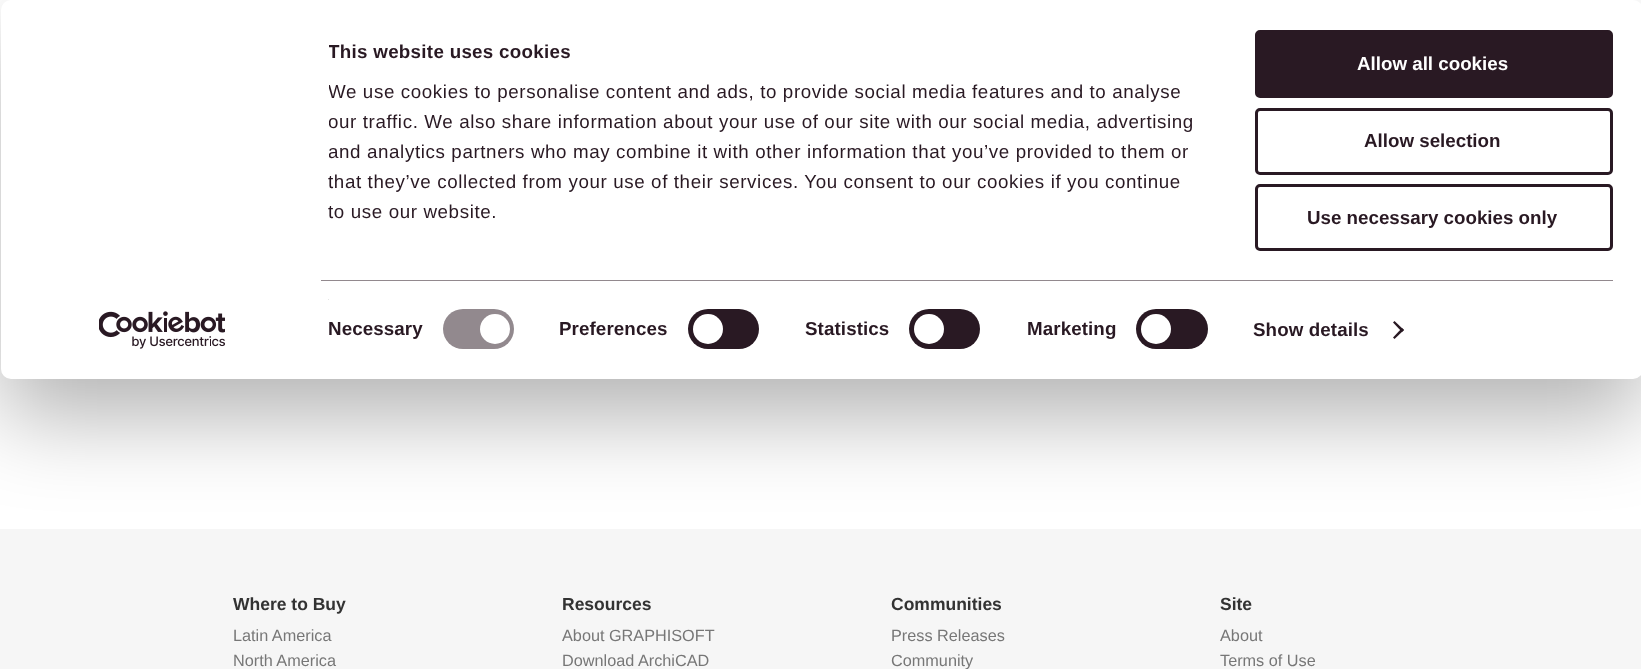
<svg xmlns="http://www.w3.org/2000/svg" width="1641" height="669">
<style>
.a{font:bold 18.75px Liberation Sans;letter-spacing:0.3px;fill:#291923}
.b{font:18.75px Liberation Sans;letter-spacing:0.62px;fill:#291923}
.c{font:bold 18.75px Liberation Sans;letter-spacing:0.1px;fill:#291923}
.d{font:bold 18.75px Liberation Sans;fill:#fff}
.e{font:bold 18.75px Liberation Sans;fill:#291923}
.f{font:bold 17.5px Liberation Sans;fill:#333}
.g{font:16.25px Liberation Sans;fill:#777}
</style>
<defs>
<clipPath id="clip1"><path d="M329 38h890v206H329z"/></clipPath>
</defs>
<rect width="100%" height="100%" fill="#fff"/>
<path fill="#f6f6f6" d="M0 529h1641v140H0z"/>
<rect fill="#0000004d" filter="blur(44px)" x="1" y="38" width="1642" height="378" rx="10"/>
<rect fill="#fff" x="1" width="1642" height="379" rx="10"/>
<path fill="#92898e" d="M321 280h1292v1H321z"/>
<path fill="#e5e5e5" d="M328 299h1v1H328z"/>
<rect fill="#92898e" x="443" y="309" width="71" height="40" rx="20"/>
<circle fill="#fff" cx="495" cy="329" r="15"/>
<rect fill="#291923" x="688" y="309" width="71" height="40" rx="20"/>
<circle fill="#fff" cx="708" cy="329" r="15"/>
<rect fill="#291923" x="909" y="309" width="71" height="40" rx="20"/>
<circle fill="#fff" cx="929" cy="329" r="15"/>
<rect fill="#291923" x="1136" y="309" width="72" height="40" rx="20"/>
<circle fill="#fff" cx="1156" cy="329" r="15"/>
<path fill="#291923" d="M1394.5 321l9.5 9l-2 2l-9-9.5z"/>
<path fill="#291923" d="M1402 328l2 2l-9.5 9l-1.5-1.5z"/>
<rect fill="#291923" stroke="#291923" stroke-width="3" x="1256.5" y="31.5" width="355" height="65" rx="3.5"/>
<rect fill="none" stroke="#291923" stroke-width="3" x="1256.5" y="109.5" width="355" height="64" rx="3.5"/>
<rect fill="none" stroke="#291923" stroke-width="3" x="1256.5" y="185.5" width="355" height="64" rx="3.5"/>
<image href="1.png" x="99" y="311" width="126" height="38"/>
<g clip-path="url(#clip1)">
<text class="a" x="328" y="58">This website uses cookies</text>
<text class="b" x="328" y="98">We use cookies to personalise content and ads, to provide social media features and to analyse</text>
<text class="b" x="328" y="128">our traffic. We also share information about your use of our site with our social media, advertising</text>
<text class="b" x="328" y="158">and analytics partners who may combine it with other information that you’ve provided to them or</text>
</g>
<text class="b" x="328" y="188">that they’ve collected from your use of their services. You consent to our cookies if you continue</text>
<text class="b" x="328" y="218">to use our website.</text>
<text class="c" x="328" y="335">Necessary</text>
<text class="c" x="559" y="335">Preferences</text>
<text class="c" x="805" y="335">Statistics</text>
<text class="c" x="1027" y="335">Marketing</text>
<text class="c" x="1253" y="336">Show details</text>
<text class="d" x="1357" y="70">Allow all cookies</text>
<text class="e" x="1364" y="147">Allow selection</text>
<text class="e" x="1307" y="224">Use necessary cookies only</text>
<text class="f" x="233" y="610">Where to Buy</text>
<text class="g" x="233" y="641">Latin America</text>
<text class="g" x="233" y="666">North America</text>
<text class="f" x="562" y="610">Resources</text>
<text class="g" x="562" y="641">About GRAPHISOFT</text>
<text class="g" x="562" y="666">Download ArchiCAD</text>
<text class="f" x="891" y="610">Communities</text>
<text class="g" x="891" y="641">Press Releases</text>
<text class="g" x="891" y="666">Community</text>
<text class="f" x="1220" y="610">Site</text>
<text class="g" x="1220" y="641">About</text>
<text class="g" x="1220" y="666">Terms of Use</text>
</svg>
